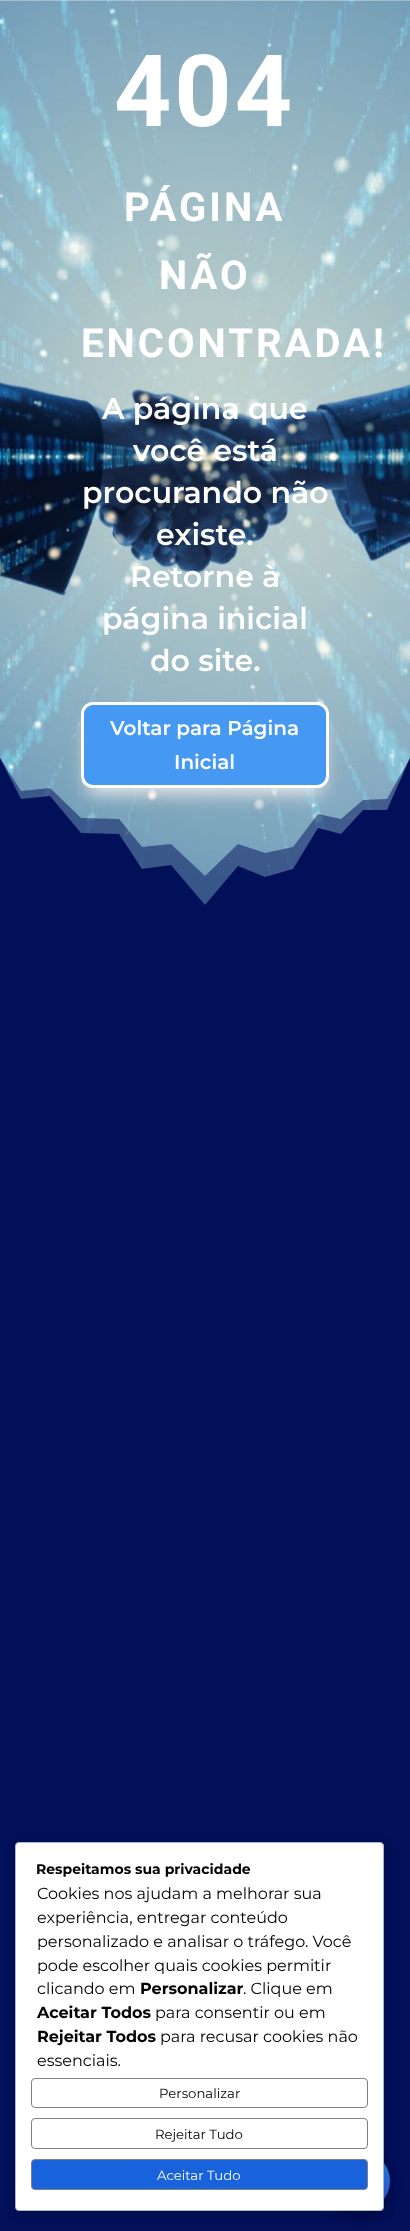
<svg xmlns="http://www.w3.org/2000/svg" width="410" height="2231">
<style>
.a{font:bold 100px Roboto;letter-spacing:3px;fill:#fff}
.b{font:bold 40px Roboto;letter-spacing:3px;fill:#fff}
.c{font:600 30px Montserrat;fill:#fff}
.d{font:600 20px Montserrat;fill:#fff}
.e{font:bold 14px Montserrat;fill:#000}
.f{font:16px Montserrat;fill:#000}
.g{font:bold 16px Montserrat;fill:#000}
.h{font:13.25px Montserrat;fill:#000}
.i{font:13.25px Montserrat;fill:#fff}
</style>
<defs>
<linearGradient id="g1" gradientUnits="userSpaceOnUse" x1="330" y1="2151" x2="390" y2="2211"><stop offset="0" stop-color="#00d2ff"/><stop offset="1" stop-color="#3a47d5"/></linearGradient>
</defs>
<rect width="100%" height="100%" fill="#020f59"/>
<image href="1.png" x="0" y="0" width="410" height="905"/>
<path fill="#020f5980" d="M0 758l21 33l29-3l31 30l38 1l23 28l29-3l34 32l33-32l27 9l28-6l25-33l23 5l22-19l24-1l23-41v150h-410z"/>
<path fill="#020f59" d="M0 758l21 41l29-3l31 37l38 1l23 35l29-4l34 40l33-39l27 11l28-8l25-41l23 6l22-24h24l23-52v150h-410z"/>
<rect fill="#e8e8e8" filter="blur(9px)" x="87" y="720" width="236" height="74" rx="6"/>
<rect fill="#4699f2" stroke="#fff" stroke-width="3" x="82.5" y="703.5" width="245" height="83" rx="10.5"/>
<rect fill="#0000004d" filter="blur(6px)" x="330" y="2155" width="60" height="60" rx="30"/>
<circle fill="url(#g1)" cx="360" cy="2181" r="30"/>
<rect fill="#00000033" filter="blur(5px)" x="16" y="1845" width="369" height="369" rx="4"/>
<rect fill="#fff" stroke="#abb8c3" x="15.5" y="1842.5" width="368" height="368" rx="3.5"/>
<rect fill="none" stroke="#808080" x="31.5" y="2078.5" width="336" height="29" rx="3.5"/>
<rect fill="none" stroke="#808080" x="31.5" y="2118.5" width="336" height="30" rx="3.5"/>
<rect fill="#1863dc" stroke="#808080" x="31.5" y="2159.5" width="336" height="30" rx="3.5"/>
<text class="a" x="114" y="126">404</text>
<text class="b" x="124" y="221">PÁGINA</text>
<text class="b" x="159" y="289">NÃO</text>
<text class="b" x="81" y="357">ENCONTRADA!</text>
<text class="c" x="102" y="419">A página que</text>
<text class="c" x="133" y="461">você está</text>
<text class="c" x="82" y="503">procurando não</text>
<text class="c" x="156" y="545">existe.</text>
<text class="c" x="130" y="587">Retorne à</text>
<text class="c" x="102" y="629">página inicial</text>
<text class="c" x="150" y="671">do site.</text>
<text class="d" x="110" y="735">Voltar para Página</text>
<text class="d" x="174" y="769">Inicial</text>
<text class="e" x="36" y="1874">Respeitamos sua privacidade</text>
<text class="f" x="37" y="1899">Cookies nos ajudam a melhorar sua</text>
<text class="f" x="37" y="1923">experiência, entregar conteúdo</text>
<text class="f" x="37" y="1947">personalizado e analisar o tráfego. Você</text>
<text class="f" x="37" y="1971">pode escolher quais cookies permitir</text>
<text class="f" x="37" y="1994">clicando em</text>
<text class="g" x="140" y="1994">Personalizar</text>
<text class="f" x="243" y="1994">. Clique em</text>
<text class="g" x="37" y="2018">Aceitar Todos</text>
<text class="f" x="155" y="2018">para consentir ou em</text>
<text class="g" x="37" y="2042">Rejeitar Todos</text>
<text class="f" x="160" y="2042">para recusar cookies não</text>
<text class="f" x="37" y="2066">essenciais.</text>
<text class="h" x="159" y="2098">Personalizar</text>
<text class="h" x="155" y="2139">Rejeitar Tudo</text>
<text class="i" x="157" y="2180">Aceitar Tudo</text>
</svg>
